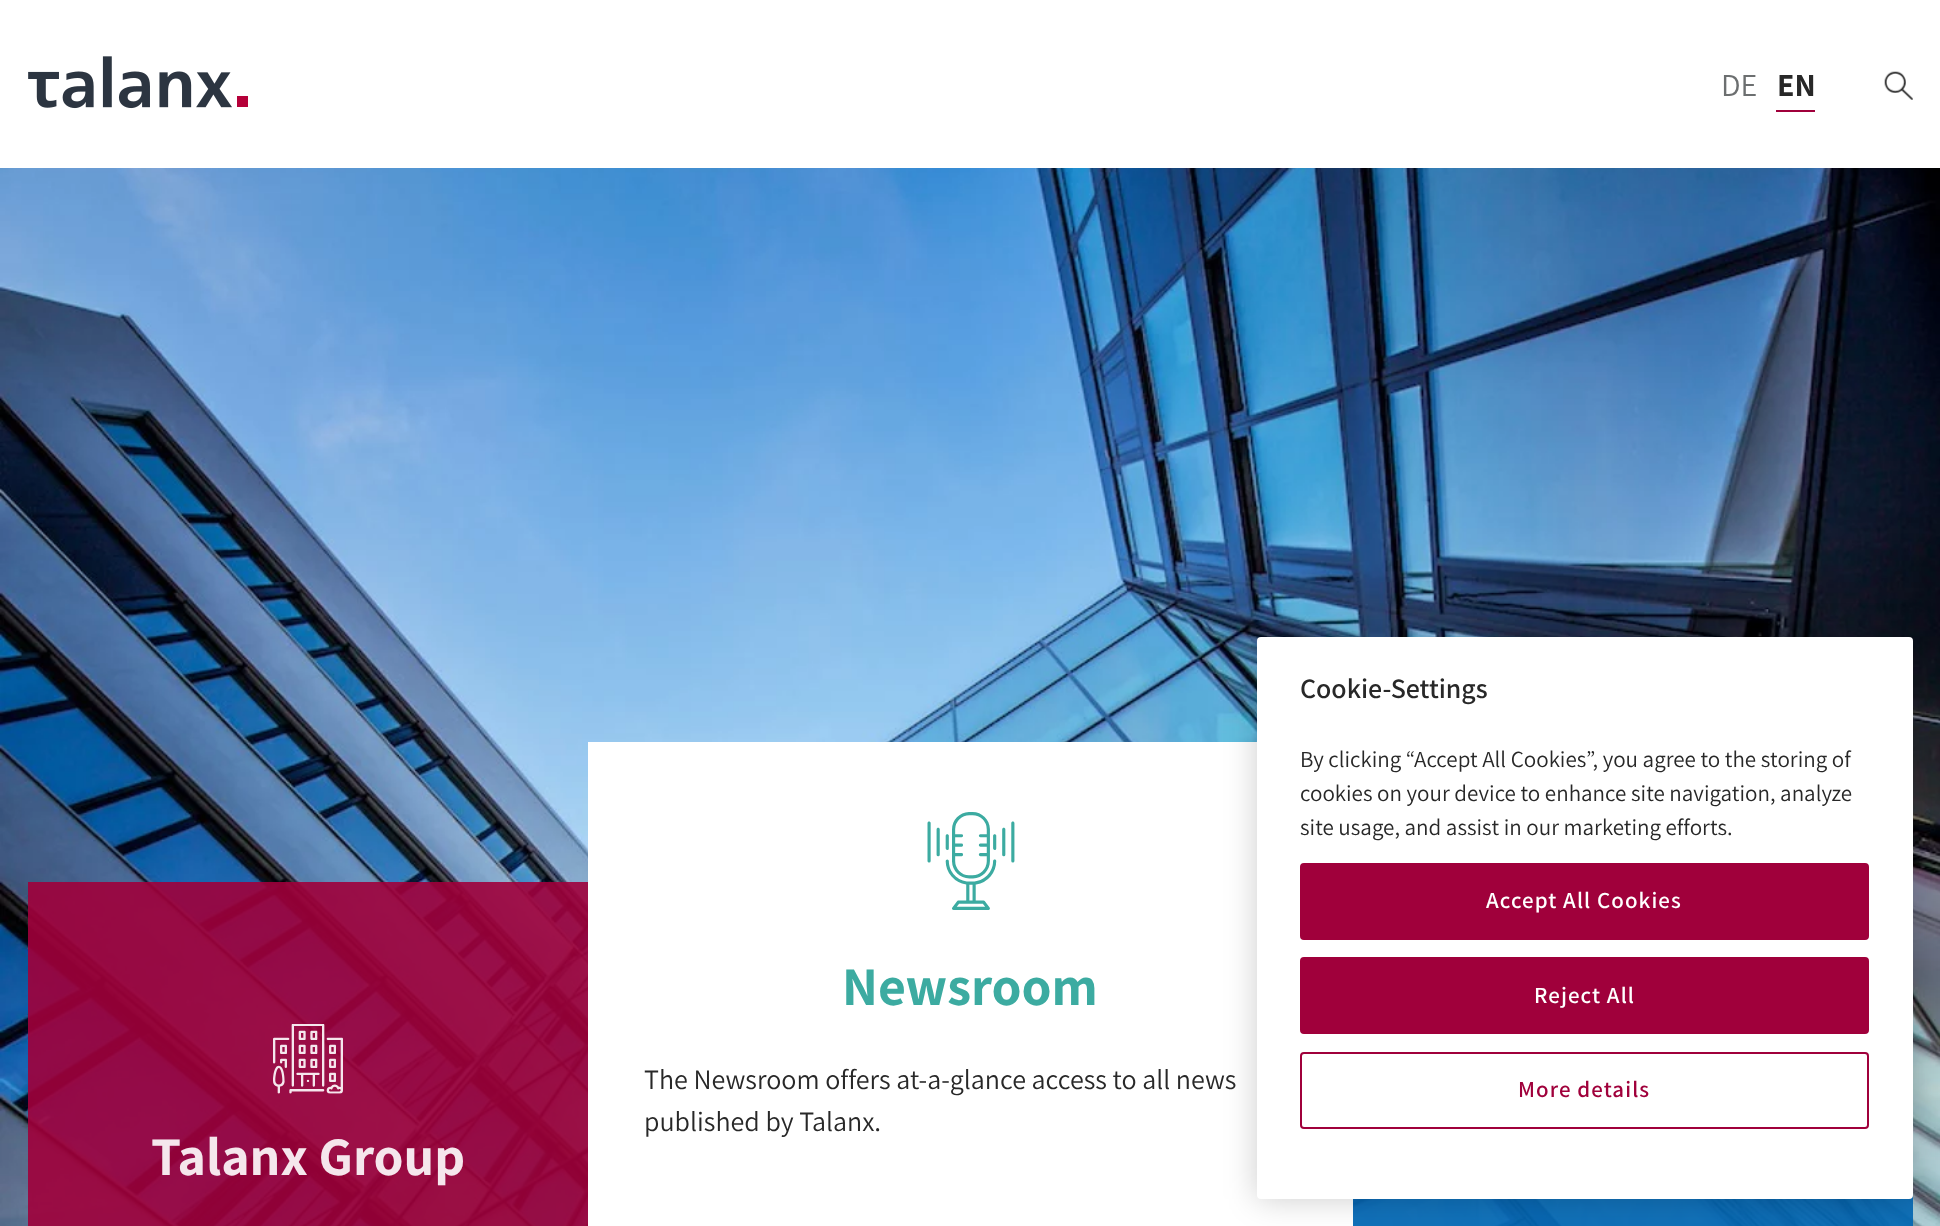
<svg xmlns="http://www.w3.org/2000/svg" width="1940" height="1226">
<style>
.a{font:32px Assistant;fill:#6c6f70}
.b{font:bold 32px Assistant;fill:#282828}
.c{font:bold 54.25px Assistant;fill:#3caba1}
.d{font:28px Assistant;fill:#282828}
.e{font:bold 54.25px Assistant;fill:#f5e6ec}
.f{font:600 28px Assistant;fill:#282828}
.g{font:23px Assistant;fill:#282828}
.h{font:600 23px Assistant;letter-spacing:1.1px;fill:#fff}
.i{font:600 23px Assistant;letter-spacing:1.1px;fill:#a0003b}
</style>
<rect width="100%" height="100%" fill="#fff"/>
<image href="1.png" x="28" y="56" width="220" height="53"/>
<path fill="#a0003b" d="M1776 110h39v2H1776z"/>
<image href="2.png" x="1884" y="71" width="29" height="29"/>
<image href="3.png" x="0" y="168" width="1940" height="1058"/>
<path fill="#fff" d="M588 742h765v484H588z"/>
<image href="4.png" x="927" y="812" width="88" height="98"/>
<path fill="#a0003be6" d="M28 882h560v344H28z"/>
<image href="5.png" x="273" y="1024" width="70" height="70"/>
<path fill="#0066b4e6" d="M1353 1195h560v31H1353z"/>
<rect fill="#00000033" filter="blur(16px)" x="1257" y="637" width="656" height="562" rx="4"/>
<rect fill="#fff" x="1257" y="637" width="656" height="562" rx="4"/>
<rect fill="#a0003b" stroke="#a0003b" stroke-width="2" x="1301" y="864" width="567" height="75" rx="3"/>
<rect fill="#a0003b" stroke="#a0003b" stroke-width="2" x="1301" y="958" width="567" height="75" rx="3"/>
<rect fill="none" stroke="#a0003b" stroke-width="2" x="1301" y="1053" width="567" height="75" rx="3"/>
<text class="a" x="1721" y="96">DE</text>
<text class="b" x="1777" y="96">EN</text>
<text class="c" x="842" y="1005">Newsroom</text>
<text class="d" x="644" y="1089">The Newsroom offers at-a-glance access to all news</text>
<text class="d" x="644" y="1131">published by Talanx.</text>
<text class="e" x="151" y="1175">Talanx Group</text>
<text class="f" x="1300" y="698">Cookie-Settings</text>
<text class="g" x="1300" y="767">By clicking “Accept All Cookies”, you agree to the storing of</text>
<text class="g" x="1300" y="801">cookies on your device to enhance site navigation, analyze</text>
<text class="g" x="1300" y="835">site usage, and assist in our marketing efforts.</text>
<text class="h" x="1486" y="908">Accept All Cookies</text>
<text class="h" x="1534" y="1003">Reject All</text>
<text class="i" x="1518" y="1097">More details</text>
</svg>
